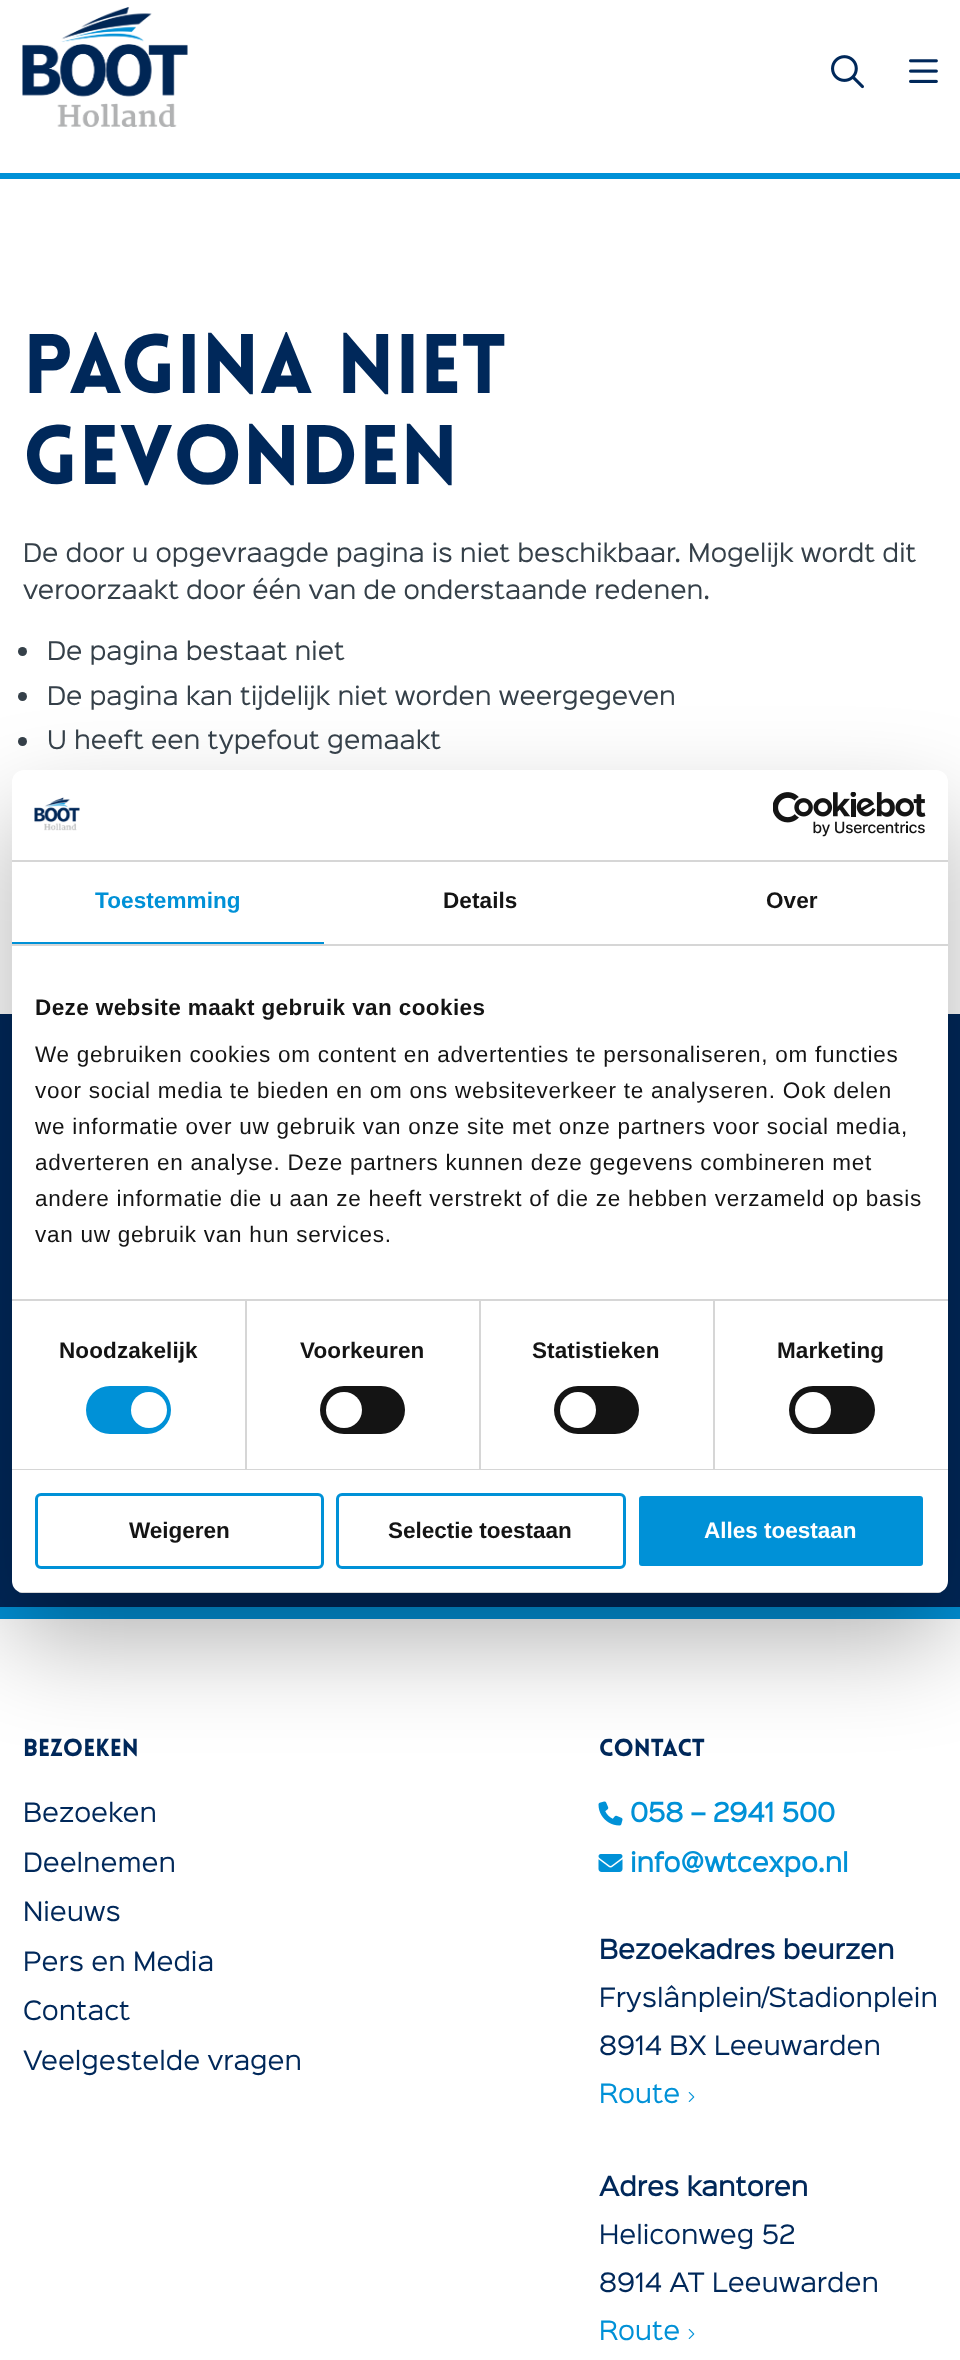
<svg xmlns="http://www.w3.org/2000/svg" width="960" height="2360">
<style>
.a{font:900 82.5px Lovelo;fill:#00285a}
.b{font:23.15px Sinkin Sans;fill:#354049}
.c{font:bold 22.5px Liberation Sans;letter-spacing:0.1px;fill:#0091d7}
.d{font:bold 22.5px Liberation Sans;letter-spacing:0.1px;fill:#141414}
.e{font:bold 22.5px Liberation Sans;letter-spacing:0.4px;fill:#141414}
.f{font:22.5px Liberation Sans;letter-spacing:0.75px;fill:#141414}
.g{font:bold 22.5px Liberation Sans;fill:#141414}
.h{font:bold 22.5px Liberation Sans;fill:#fff}
.i{font:900 24px Lovelo;fill:#00285a}
.j{font:24px Sinkin Sans;fill:#00285a}
.k{font:bold 24px Sinkin Sans;fill:#0091d7}
.l{font:bold 24px Sinkin Sans;fill:#00285a}
.m{font:24px Sinkin Sans;fill:#0091d7}
</style>
<defs>
<clipPath id="clip1"><rect x="12" y="770" width="936" height="823" rx="12"/></clipPath>
</defs>
<rect width="100%" height="100%" fill="#fff"/>
<path fill="#0091d7" d="M0 173h960v6H0z"/>
<image href="1.png" x="22" y="7" width="166" height="120"/>
<image href="2.png" x="831" y="55" width="33" height="34"/>
<image href="3.png" x="909" y="59" width="29" height="24"/>
<circle fill="#354049" cx="22.5" cy="651.5" r="4.5"/>
<circle fill="#354049" cx="22.5" cy="696.5" r="4.5"/>
<circle fill="#354049" cx="22.5" cy="741.5" r="4.5"/>
<path fill="#00285a" d="M0 1014h960v593H0z"/>
<path fill="#0091d7" d="M0 1607h960v12H0z"/>
<rect fill="#0000004d" filter="blur(51px)" x="12" y="818" width="936" height="823" rx="12"/>
<rect fill="#fff" x="12" y="770" width="936" height="823" rx="12"/>
<path fill="#d6d6d6" d="M12 860h936v2H12z"/>
<image href="4.png" x="34" y="797" width="46" height="34"/>
<image href="5.png" x="773" y="792" width="153" height="45"/>
<path fill="#d6d6d6" d="M12 944h936v2H12z"/>
<path fill="#0091d7" d="M12 942h312v2H12z"/>
<path fill="#d6d6d6" d="M12 1299h936v2H12z"/>
<path fill="#d6d6d6" d="M12 1469h936v1H12z"/>
<path fill="#d6d6d6" d="M245 1301h2v168H245z"/>
<rect fill="#0091d7" x="86" y="1386" width="85" height="48" rx="24"/>
<circle fill="#fff" cx="149" cy="1410" r="18"/>
<path fill="#d6d6d6" d="M479 1301h2v168H479z"/>
<rect fill="#141414" x="320" y="1386" width="85" height="48" rx="24"/>
<circle fill="#fff" cx="344" cy="1410" r="18"/>
<path fill="#d6d6d6" d="M713 1301h2v168H713z"/>
<rect fill="#141414" x="554" y="1386" width="85" height="48" rx="24"/>
<circle fill="#fff" cx="578" cy="1410" r="18"/>
<rect fill="#141414" x="789" y="1386" width="86" height="48" rx="24"/>
<circle fill="#fff" cx="813" cy="1410" r="18"/>
<g clip-path="url(#clip1)">
<path fill="#d6d6d6" d="M12 1592h936v1H12z"/>
</g>
<rect fill="none" stroke="#0091d7" stroke-width="3" x="36.5" y="1494.5" width="286" height="73" rx="4.5"/>
<rect fill="none" stroke="#0091d7" stroke-width="3" x="337.5" y="1494.5" width="287" height="73" rx="4.5"/>
<rect fill="#0091d7" stroke="#fff" stroke-width="3" x="637.5" y="1494.5" width="287" height="73" rx="4.5"/>
<image href="6.png" x="598" y="1801" width="25" height="25"/>
<image href="7.png" x="598" y="1854" width="25" height="18"/>
<image href="8.png" x="688" y="2092" width="7" height="10"/>
<image href="8.png" x="688" y="2329" width="7" height="10"/>
<text class="a" x="23" y="393">Pagina niet</text>
<text class="a" x="23" y="484">gevonden</text>
<text class="b" x="23" y="562" word-spacing="-0.1">De door u opgevraagde pagina is niet beschikbaar. Mogelijk wordt dit</text>
<text class="b" x="23" y="599" word-spacing="-0.25">veroorzaakt door één van de onderstaande redenen.</text>
<text class="b" x="47" y="660">De pagina bestaat niet</text>
<text class="b" x="47" y="705">De pagina kan tijdelijk niet worden weergegeven</text>
<text class="b" x="47" y="749">U heeft een typefout gemaakt</text>
<text class="c" x="95" y="908">Toestemming</text>
<text class="d" x="443" y="908">Details</text>
<text class="d" x="766" y="908">Over</text>
<text class="e" x="35" y="1015">Deze website maakt gebruik van cookies</text>
<text class="f" x="35" y="1062">We gebruiken cookies om content en advertenties te personaliseren, om functies</text>
<text class="f" x="35" y="1098">voor social media te bieden en om ons websiteverkeer te analyseren. Ook delen</text>
<text class="f" x="35" y="1134">we informatie over uw gebruik van onze site met onze partners voor social media,</text>
<text class="f" x="35" y="1170">adverteren en analyse. Deze partners kunnen deze gegevens combineren met</text>
<text class="f" x="35" y="1206">andere informatie die u aan ze heeft verstrekt of die ze hebben verzameld op basis</text>
<text class="f" x="35" y="1242">van uw gebruik van hun services.</text>
<text class="d" x="59" y="1358">Noodzakelijk</text>
<text class="d" x="300" y="1358">Voorkeuren</text>
<text class="d" x="532" y="1358">Statistieken</text>
<text class="d" x="777" y="1358">Marketing</text>
<text class="g" x="129" y="1538">Weigeren</text>
<text class="g" x="388" y="1538">Selectie toestaan</text>
<text class="h" x="704" y="1538">Alles toestaan</text>
<text class="i" x="23" y="1756">Bezoeken</text>
<text class="j" x="23" y="1822">Bezoeken</text>
<text class="j" x="23" y="1872">Deelnemen</text>
<text class="j" x="23" y="1921">Nieuws</text>
<text class="j" x="23" y="1971">Pers en Media</text>
<text class="j" x="23" y="2020">Contact</text>
<text class="j" x="23" y="2070">Veelgestelde vragen</text>
<text class="i" x="599" y="1756">Contact</text>
<text class="k" x="630" y="1822">058 – 2941 500</text>
<text class="k" x="630" y="1872">info@wtcexpo.nl</text>
<text class="l" x="599" y="1959">Bezoekadres beurzen</text>
<text class="j" x="599" y="2007">Fryslânplein/Stadionplein</text>
<text class="j" x="599" y="2055">8914 BX Leeuwarden</text>
<text class="m" x="599" y="2103">Route</text>
<text class="l" x="599" y="2196">Adres kantoren</text>
<text class="j" x="599" y="2244">Heliconweg 52</text>
<text class="j" x="599" y="2292">8914 AT Leeuwarden</text>
<text class="m" x="599" y="2340">Route</text>
</svg>
